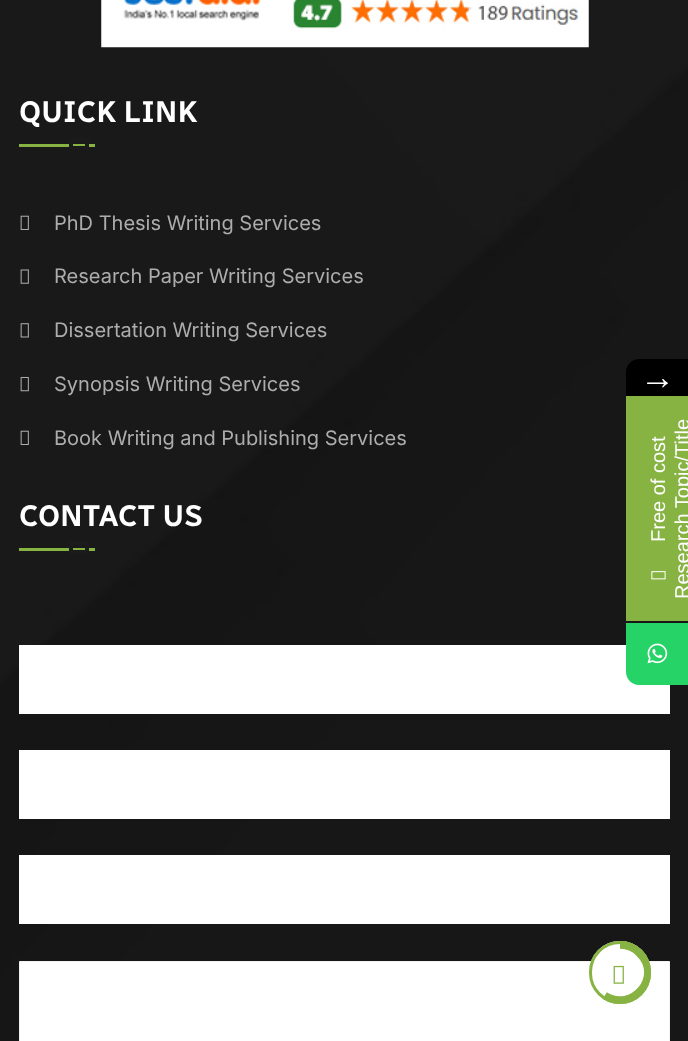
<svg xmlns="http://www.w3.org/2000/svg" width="688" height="1041">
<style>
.a{font:600 30px Radio Canada;fill:#fff}
.b{font:20px Inter;fill:#adadad}
.c{font:35px Liberation Sans;fill:#fff}
.d{font:20px Liberation Sans;fill:#fff}
</style>
<defs>
<clipPath id="clip1"><rect x="589" y="941" width="62" height="63" rx="31"/></clipPath>
</defs>
<rect width="100%" height="100%" fill="#fff"/>
<image href="1.png" x="0" y="0" width="688" height="1041"/>
<image href="2.png" x="101" y="0" width="488" height="48"/>
<path fill="#87b342" d="M19 144h76v3H19z"/>
<path fill="none" stroke="#1b1b1b" stroke-width="4" d="M71 140h16v8H71z"/>
<image href="3.png" x="20" y="215" width="9" height="15"/>
<image href="4.png" x="20" y="269" width="9" height="15"/>
<image href="5.png" x="20" y="323" width="9" height="15"/>
<image href="6.png" x="20" y="376" width="9" height="16"/>
<image href="3.png" x="20" y="430" width="9" height="15"/>
<path fill="#87b342" d="M19 548h76v3H19z"/>
<path fill="none" stroke="#1b1b1b" stroke-width="4" d="M71 543h16v9H71z"/>
<path fill="#fff" d="M19 645h651v69H19z"/>
<path fill="#fff" d="M19 750h651v69H19z"/>
<path fill="#fff" d="M19 855h651v69H19z"/>
<path fill="#fff" stroke="#f2f2f2" d="M19.5 961.5h650v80H19.5z"/>
<path fill="#000" d="M639 359h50v40h-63v-27c0-7 6-13 13-13z"/>
<path fill="#87b342" d="M626 396h62v225H626z"/>
<image href="7.png" x="651" y="571" width="15" height="9"/>
<path fill="#26d367" d="M626 623h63v62h-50c-7 0-13-6-13-13z"/>
<image href="8.png" x="647" y="643" width="21" height="21"/>
<rect fill="#fff" x="589" y="941" width="62" height="63" rx="31"/>
<g clip-path="url(#clip1)">
<path fill="none" stroke="#87b342" stroke-width="12.3" d="M620 942.5c8 0 15.5 3 21 9c26 25.5-8 65-37.5 46"/>
</g>
<rect fill="none" stroke="#87b342" stroke-width="3" x="590.5" y="942.5" width="59" height="60" rx="29.5"/>
<image href="9.png" x="613" y="965" width="11" height="19"/>
<text class="a" x="19" y="122">QUICK LINK</text>
<text class="b" x="54" y="230">PhD Thesis Writing Services</text>
<text class="b" x="54" y="283">Research Paper Writing Services</text>
<text class="b" x="54" y="337">Dissertation Writing Services</text>
<text class="b" x="54" y="391">Synopsis Writing Services</text>
<text class="b" x="54" y="445">Book Writing and Publishing Services</text>
<text class="a" x="19" y="526">CONTACT US</text>
<text class="c" x="640" y="389">→</text>
<text class="d" x="665" y="542" transform="rotate(-90 665 542)">Free of cost</text>
<text class="d" x="689" y="599" transform="rotate(-90 689 599)">Research Topic/Title</text>
</svg>
